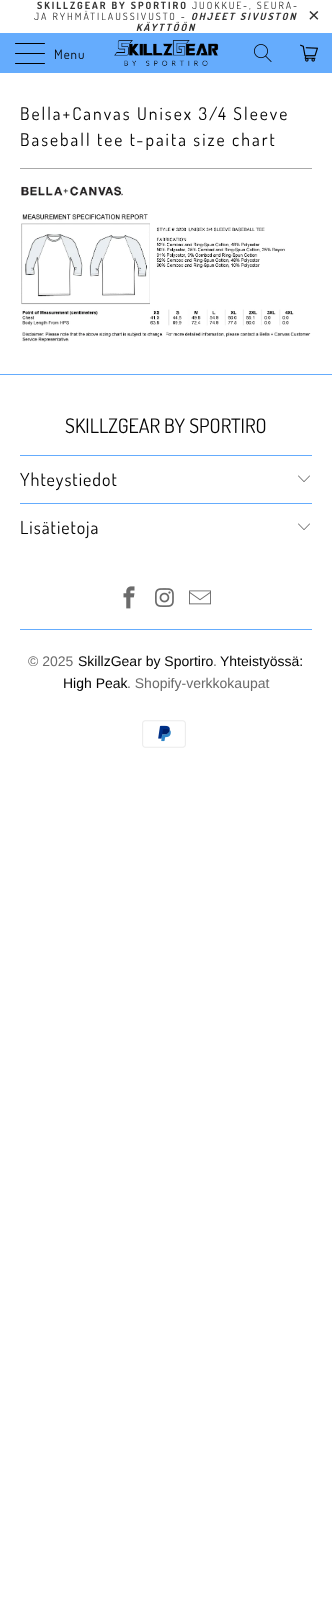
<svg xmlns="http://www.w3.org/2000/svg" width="332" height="1604">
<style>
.a{font:bold 10px Dosis;letter-spacing:2px;fill:#333}
.b{font:10px Dosis;letter-spacing:2px;fill:#333}
.c{font:italic bold 10px Dosis;letter-spacing:2px;fill:#333}
.d{font:20px Liberation Sans;letter-spacing:2px;fill:#333}
.e{font:13px Dosis;letter-spacing:1px;fill:#040404}
.f{font:17.6px Dosis;letter-spacing:2px;fill:#040404}
.g{font:20px Dosis;fill:#040404}
.h{font:18px Dosis;letter-spacing:1px;fill:#040404}
.i{font:14px Liberation Sans;fill:#6b6b6b}
.j{font:14px Liberation Sans;fill:#040404}
</style>
<rect width="100%" height="100%" fill="#fff"/>
<path fill="#65acfd" d="M0 33h332v40H0z"/>
<rect fill="#000" x="15" y="43" width="30" height="1" rx="0.5"/>
<rect fill="#000" x="15" y="53" width="30" height="1" rx="0.5"/>
<rect fill="#000" x="15" y="63" width="30" height="1" rx="0.5"/>
<image href="1.png" x="114" y="40" width="105" height="26"/>
<image href="2.png" x="254" y="44" width="18" height="18"/>
<image href="3.png" x="300" y="44" width="18" height="18"/>
<path fill="#aaa" d="M20 168h292v1H20z"/>
<image href="4.png" x="21" y="186" width="290" height="156"/>
<path fill="#65acfd" d="M0 374h332v1H0z"/>
<path fill="#65acfd" d="M20 455h292v1H20z"/>
<image href="5.png" x="298" y="475" width="12" height="7"/>
<path fill="#65acfd" d="M20 503h292v1H20z"/>
<image href="5.png" x="298" y="523" width="12" height="7"/>
<image href="6.png" x="123" y="586" width="12" height="23"/>
<image href="7.png" x="155" y="588" width="19" height="19"/>
<image href="8.png" x="189" y="590" width="22" height="15"/>
<path fill="#65acfd" d="M20 629h292v1H20z"/>
<image href="9.png" x="142" y="720" width="44" height="28"/>
<text class="a" x="37" y="9">SKILLZGEAR BY SPORTIRO</text>
<text class="b" x="192" y="9">JUOKKUE-, SEURA-</text>
<text class="b" x="34" y="20">JA RYHMÄTILAUSSIVUSTO -</text>
<text class="c" x="191" y="20">OHJEET SIVUSTON</text>
<text class="c" x="136" y="31">KÄYTTÖÖN</text>
<text class="d" x="308" y="22">×</text>
<text class="e" x="54" y="59">Menu</text>
<text class="f" x="20" y="120">Bella+Canvas Unisex 3/4 Sleeve</text>
<text class="f" x="20" y="146">Baseball tee t-paita size chart</text>
<text class="g" x="65" y="433">SKILLZGEAR BY SPORTIRO</text>
<text class="h" x="20" y="486">Yhteystiedot</text>
<text class="h" x="20" y="534">Lisätietoja</text>
<text class="i" x="28" y="666">© 2025</text>
<text class="j" x="78" y="666">SkillzGear by Sportiro</text>
<text class="i" x="213" y="666">.</text>
<text class="j" x="220" y="666">Yhteistyössä:</text>
<text class="j" x="63" y="688">High Peak</text>
<text class="i" x="127" y="688">. Shopify-verkkokaupat</text>
</svg>
